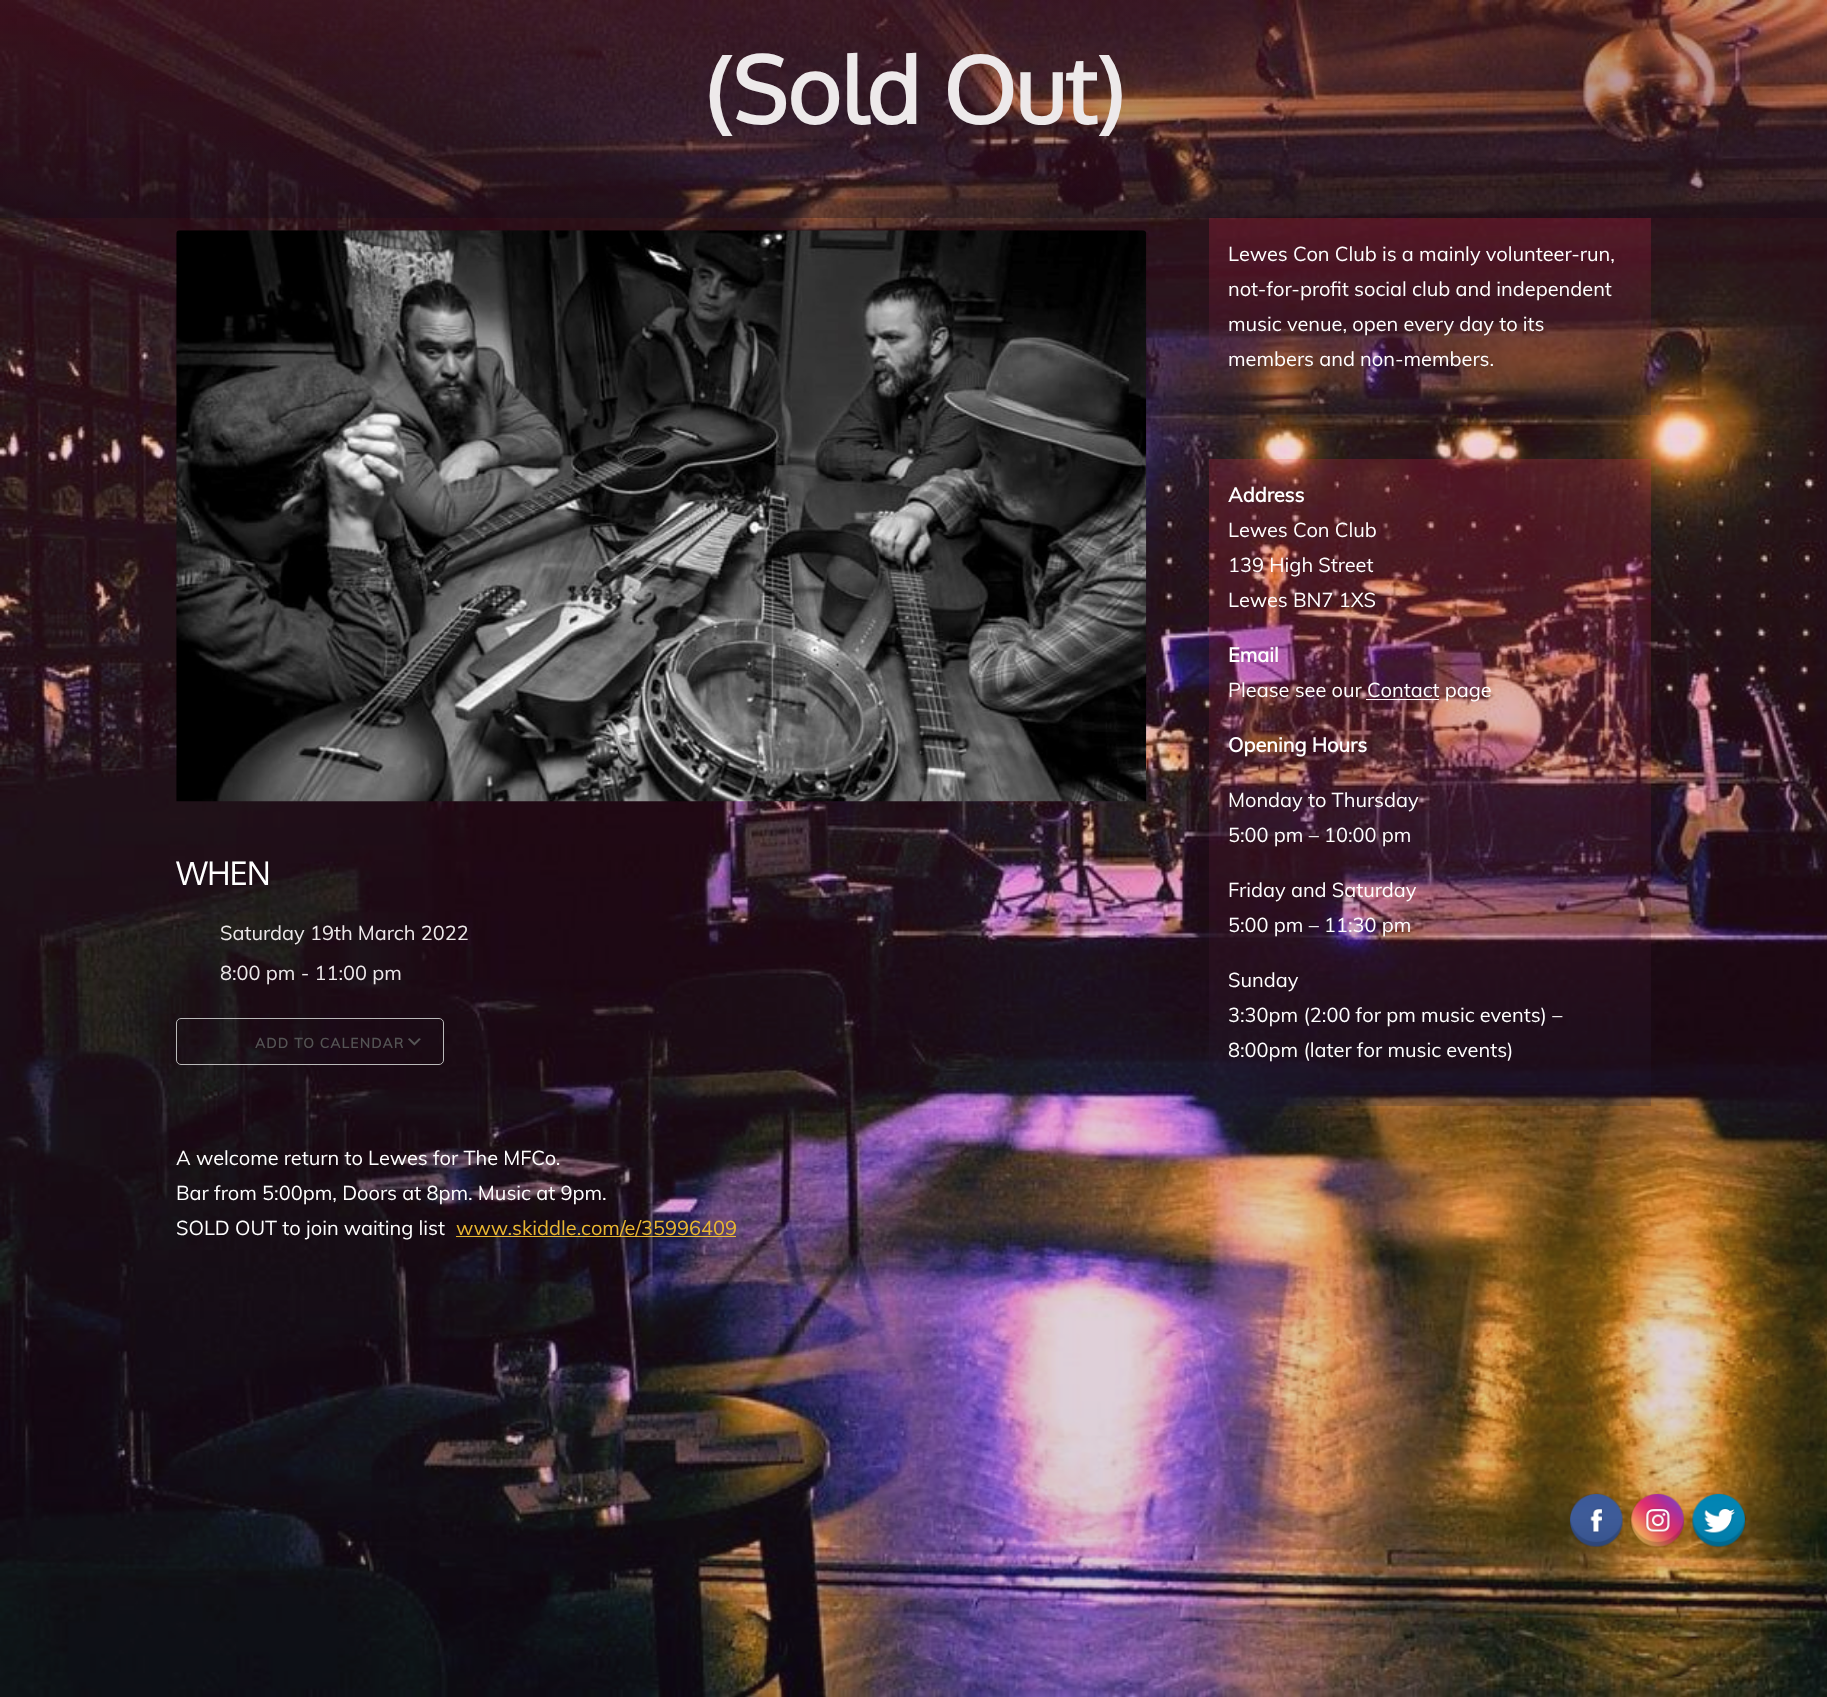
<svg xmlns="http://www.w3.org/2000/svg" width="1827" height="1697">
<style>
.a{font:bold 91.5px Oxygen;fill:#ede9ea}
.b{font:32.5px Oxygen;letter-spacing:-1px;fill:#fff}
.c{font:20px Muli;fill:#ede9ea}
.d{font:bold 13.75px Muli;letter-spacing:1.25px;fill:#545454}
.e{font:20px Muli;fill:#fff}
.f{font:20px Muli;fill:#e9b732}
.g{font:bold 20px Muli;fill:#fff}
</style>
<defs>
<linearGradient id="g1" gradientUnits="userSpaceOnUse" x1="914" y1="-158" x2="914" y2="218"><stop offset="0" stop-color="#fd2d55" stop-opacity="0.16"/><stop offset="1" stop-color="#1a1a37" stop-opacity="0.16"/></linearGradient>
</defs>
<rect width="100%" height="100%" fill="#fff"/>
<image href="1.png" x="0" y="0" width="1827" height="1697"/>
<path fill="#00000033" d="M0 0h1827v218H0z"/>
<path fill="url(#g1)" d="M0 0h1827v218H0z"/>
<image href="2.png" x="176" y="230" width="971" height="572"/>
<image href="3.png" x="408" y="1038" width="13" height="8"/>
<rect fill="none" stroke="#bababa" x="176.5" y="1018.5" width="267" height="46" rx="4.5"/>
<path fill="#ffc832e6" d="M456 1236h280v1H456z"/>
<path fill="#fff" d="M1366 699h73v1H1366z"/>
<image href="4.png" x="1570" y="1493" width="53" height="54"/>
<image href="5.png" x="1630" y="1493" width="55" height="54"/>
<image href="6.png" x="1692" y="1493" width="54" height="54"/>
<text class="a" x="705" y="124">(Sold Out)</text>
<text class="b" x="176" y="885">WHEN</text>
<text class="c" x="220" y="940">Saturday 19th March 2022</text>
<text class="c" x="220" y="980">8:00 pm - 11:00 pm</text>
<text class="d" x="255" y="1048">ADD TO CALENDAR</text>
<text class="e" x="176" y="1165">A welcome return to Lewes for The MFCo.</text>
<text class="e" x="176" y="1200">Bar from 5:00pm, Doors at 8pm. Music at 9pm.</text>
<text class="e" x="176" y="1235">SOLD OUT to join waiting list</text>
<text class="f" x="456" y="1235">www.skiddle.com/e/35996409</text>
<text class="e" x="1228" y="261">Lewes Con Club is a mainly volunteer-run,</text>
<text class="e" x="1228" y="296">not-for-profit social club and independent</text>
<text class="e" x="1228" y="331">music venue, open every day to its</text>
<text class="e" x="1228" y="366">members and non-members.</text>
<text class="g" x="1228" y="502">Address</text>
<text class="e" x="1228" y="537">Lewes Con Club</text>
<text class="e" x="1228" y="572">139 High Street</text>
<text class="e" x="1228" y="607">Lewes BN7 1XS</text>
<text class="g" x="1228" y="662">Email</text>
<text class="e" x="1228" y="697">Please see our Contact page</text>
<text class="g" x="1228" y="752">Opening Hours</text>
<text class="e" x="1228" y="807">Monday to Thursday</text>
<text class="e" x="1228" y="842">5:00 pm – 10:00 pm</text>
<text class="e" x="1228" y="897">Friday and Saturday</text>
<text class="e" x="1228" y="932">5:00 pm – 11:30 pm</text>
<text class="e" x="1228" y="987">Sunday</text>
<text class="e" x="1228" y="1022">3:30pm (2:00 for pm music events) –</text>
<text class="e" x="1228" y="1057">8:00pm (later for music events)</text>
</svg>
